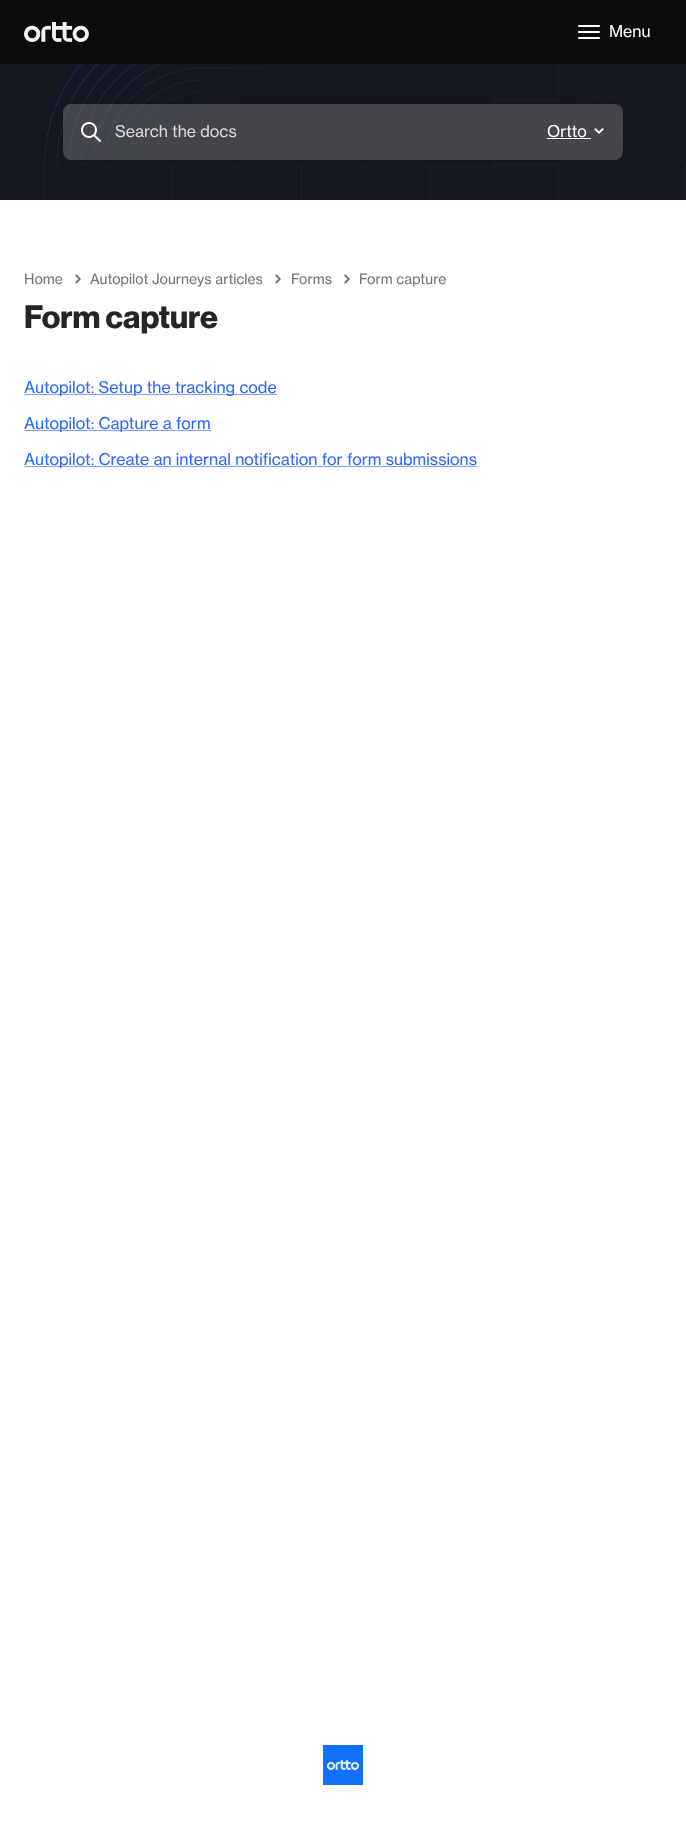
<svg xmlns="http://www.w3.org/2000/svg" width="686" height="1825">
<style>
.a{font:16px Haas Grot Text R;fill:#fff}
.b{font:16px Haas Grot Text R;fill:#d9dadb}
.c{font:14px Haas Grot Text R;fill:#737373}
.d{font:bold 32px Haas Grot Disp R;fill:#252525}
.e{font:16px Haas Grot Text R;fill:#2a66ff}
</style>
<rect width="100%" height="100%" fill="#fff"/>
<image href="1.png" x="0" y="64" width="686" height="136"/>
<path fill="#0c0c0c" d="M0 0h686v64H0z"/>
<image href="2.png" x="24" y="22" width="65" height="20"/>
<image href="3.png" x="578" y="25" width="22" height="14"/>
<rect fill="none" stroke="#00000026" x="62.5" y="103.5" width="561" height="57" rx="8.5"/>
<rect fill="#ffffff33" x="63" y="104" width="560" height="56" rx="8"/>
<image href="4.png" x="81" y="122" width="20" height="20"/>
<path fill="#fff" d="M547 138h44v1H547z"/>
<image href="5.png" x="594" y="128" width="10" height="6"/>
<image href="6.png" x="75" y="274" width="6" height="10"/>
<image href="6.png" x="275" y="274" width="6" height="10"/>
<image href="6.png" x="344" y="274" width="6" height="10"/>
<path fill="#7fa3ff" d="M24 394h253v1H24z"/>
<path fill="#7fa3ff" d="M24 430h187v1H24z"/>
<path fill="#7fa3ff" d="M24 466h453v1H24z"/>
<image href="7.png" x="323" y="1745" width="40" height="40"/>
<text class="a" x="609" y="37">Menu</text>
<text class="b" x="115" y="137">Search the docs</text>
<text class="a" x="547" y="137">Ortto</text>
<text class="c" x="24" y="284">Home</text>
<text class="c" x="90" y="284">Autopilot Journeys articles</text>
<text class="c" x="291" y="284">Forms</text>
<text class="c" x="359" y="284">Form capture</text>
<text class="d" x="24" y="328">Form capture</text>
<text class="e" x="24" y="393">Autopilot: Setup the tracking code</text>
<text class="e" x="24" y="429">Autopilot: Capture a form</text>
<text class="e" x="24" y="465">Autopilot: Create an internal notification for form submissions</text>
</svg>
